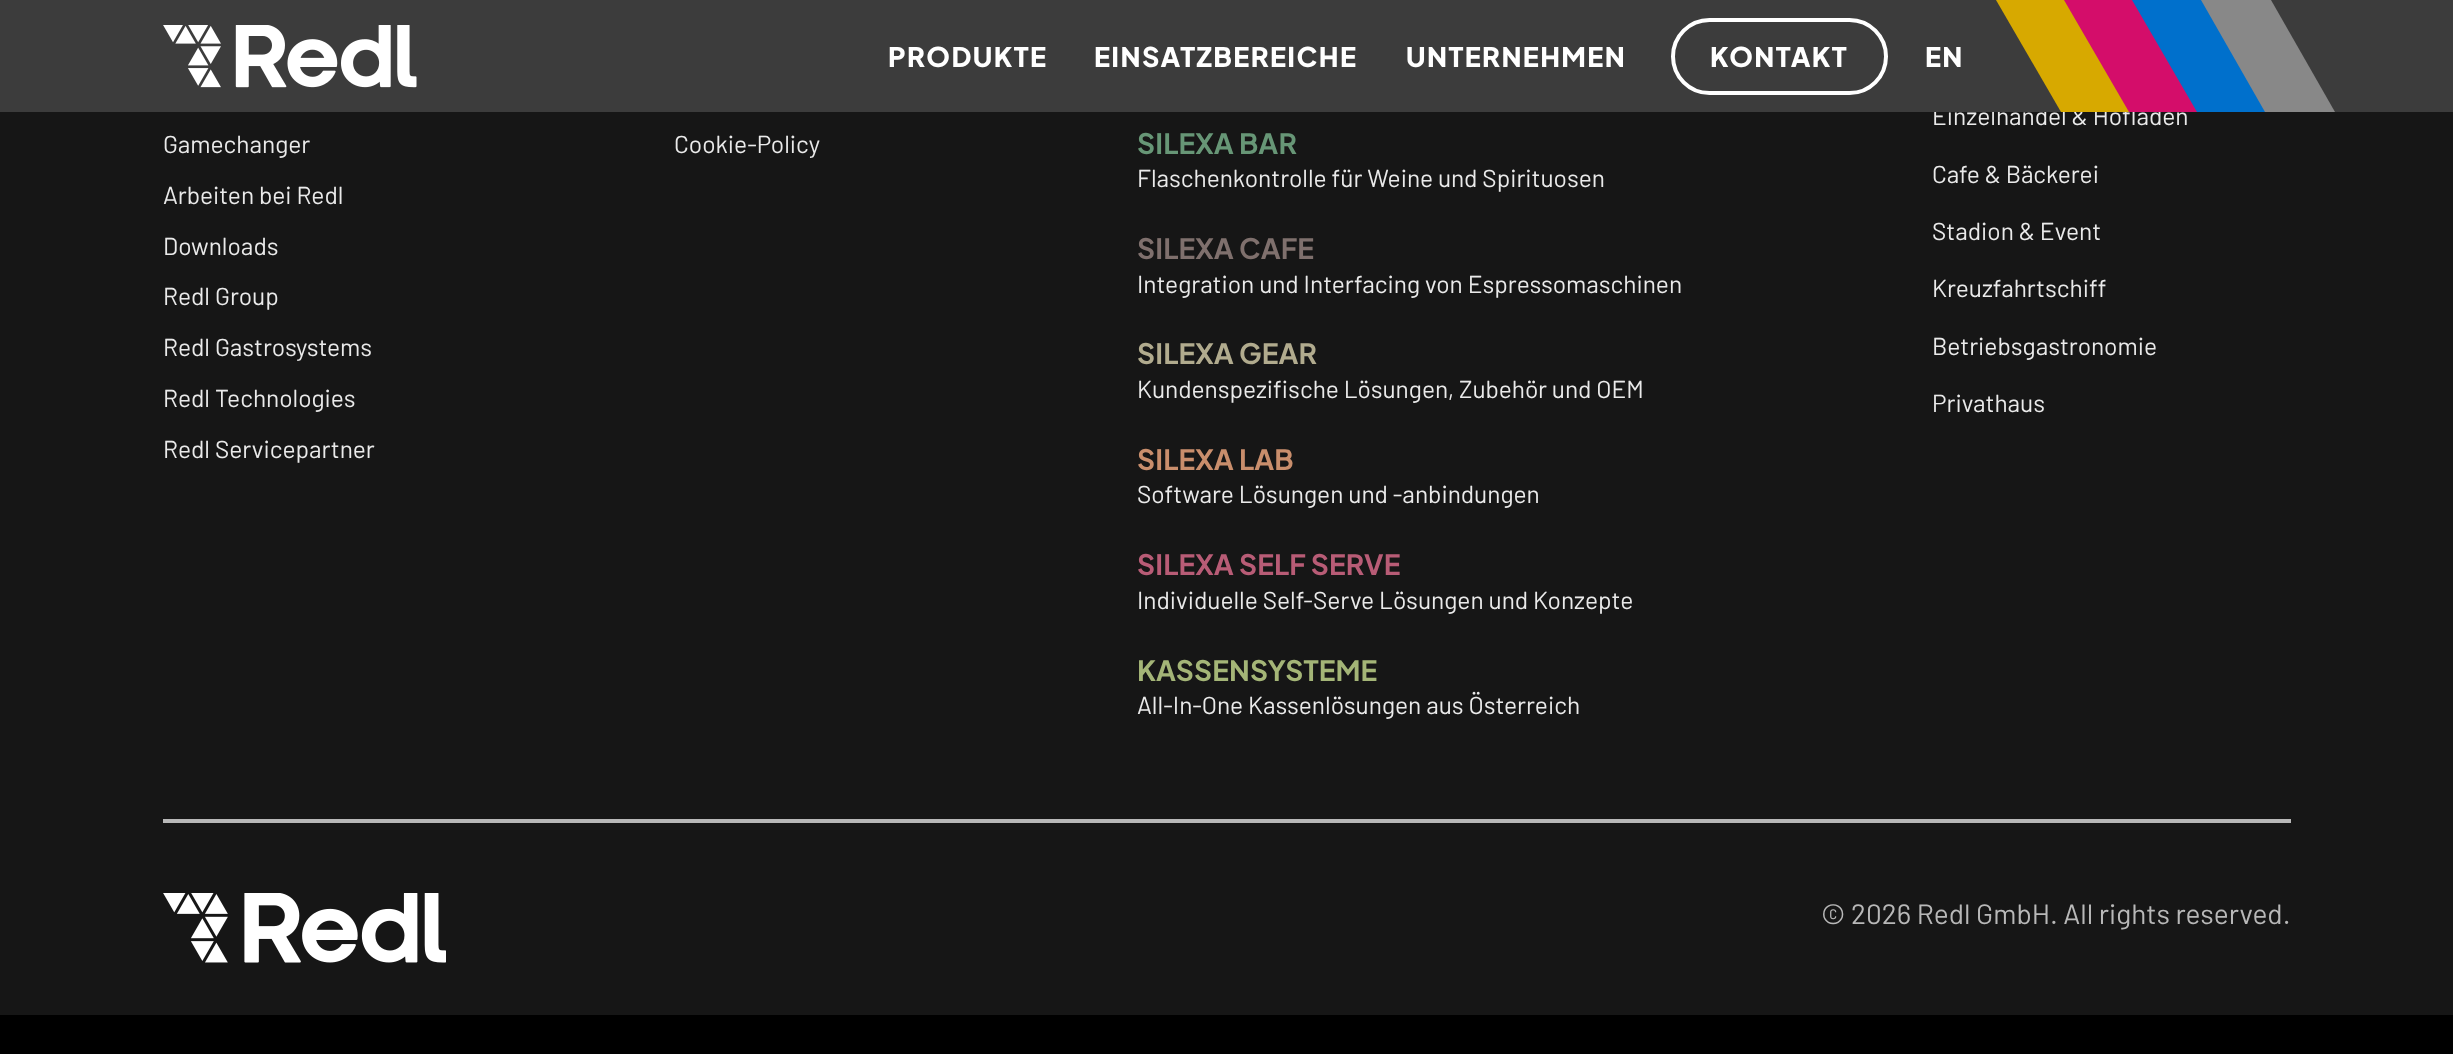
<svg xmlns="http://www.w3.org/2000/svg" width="2453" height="1054">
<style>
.a{font:24.5px Barlow;fill:#eaeaea}
.b{font:bold 28px Plus Jakarta Sans;letter-spacing:0.1px;fill:#679676}
.c{font:bold 28px Plus Jakarta Sans;letter-spacing:0.1px;fill:#7f706d}
.d{font:bold 28px Plus Jakarta Sans;letter-spacing:0.1px;fill:#b1ab8e}
.e{font:bold 28px Plus Jakarta Sans;letter-spacing:0.1px;fill:#c98e6c}
.f{font:bold 28px Plus Jakarta Sans;letter-spacing:0.1px;fill:#b85c76}
.g{font:bold 28px Plus Jakarta Sans;letter-spacing:0.1px;fill:#a4b577}
.h{font:800 27px Plus Jakarta Sans;letter-spacing:1.4px;fill:#fff}
.i{font:28px Barlow;fill:#b8b8b8}
</style>
<rect width="100%" height="100%" fill="#161616"/>
<path fill="#000" d="M0 1015h2453v39H0z"/>
<path fill="#b8b8b8" d="M163 819h2128v4H163z"/>
<image href="2.png" x="163" y="893" width="283" height="70"/>
<text class="a" x="163" y="153">Gamechanger</text>
<text class="a" x="163" y="204">Arbeiten bei Redl</text>
<text class="a" x="163" y="255">Downloads</text>
<text class="a" x="163" y="305">Redl Group</text>
<text class="a" x="163" y="356">Redl Gastrosystems</text>
<text class="a" x="163" y="407">Redl Technologies</text>
<text class="a" x="163" y="458">Redl Servicepartner</text>
<text class="a" x="674" y="153">Cookie-Policy</text>
<text class="b" x="1137" y="154">SILEXA BAR</text>
<text class="a" x="1137" y="187">Flaschenkontrolle für Weine und Spirituosen</text>
<text class="c" x="1137" y="259">SILEXA CAFE</text>
<text class="a" x="1137" y="293">Integration und Interfacing von Espressomaschinen</text>
<text class="d" x="1137" y="364">SILEXA GEAR</text>
<text class="a" x="1137" y="398">Kundenspezifische Lösungen, Zubehör und OEM</text>
<text class="e" x="1137" y="470">SILEXA LAB</text>
<text class="a" x="1137" y="503">Software Lösungen und -anbindungen</text>
<text class="f" x="1137" y="575">SILEXA SELF SERVE</text>
<text class="a" x="1137" y="609">Individuelle Self-Serve Lösungen und Konzepte</text>
<text class="g" x="1137" y="681">KASSENSYSTEME</text>
<text class="a" x="1137" y="714">All-In-One Kassenlösungen aus Österreich</text>
<text class="a" x="1932" y="125">Einzelhandel &amp; Hofladen</text>
<path fill="#3c3c3c" d="M0 0h2453v112H0z"/>
<path fill="#d7a900" d="M1996 0h70l65 112h-70z"/>
<path fill="#d40d6a" d="M2064 0h70l65 112h-70z"/>
<path fill="#0070cc" d="M2132 0h70l65 112h-70z"/>
<path fill="#888" d="M2201 0h70l64 112h-70z"/>
<text class="h" x="1925" y="67">EN</text>
<rect fill="none" stroke="#fff" stroke-width="4" x="1673" y="20" width="213" height="73" rx="36.5"/>
<text class="h" x="1710" y="67">KONTAKT</text>
<text class="h" x="1406" y="67">UNTERNEHMEN</text>
<text class="h" x="1094" y="67">EINSATZBEREICHE</text>
<text class="h" x="888" y="67">PRODUKTE</text>
<image href="1.png" x="163" y="25" width="254" height="63"/>
<text class="a" x="1932" y="183">Cafe &amp; Bäckerei</text>
<text class="a" x="1932" y="240">Stadion &amp; Event</text>
<text class="a" x="1932" y="297">Kreuzfahrtschiff</text>
<text class="a" x="1932" y="355">Betriebsgastronomie</text>
<text class="a" x="1932" y="412">Privathaus</text>
<text class="i" x="1821" y="924">© 2026 Redl GmbH. All rights reserved.</text>
</svg>
